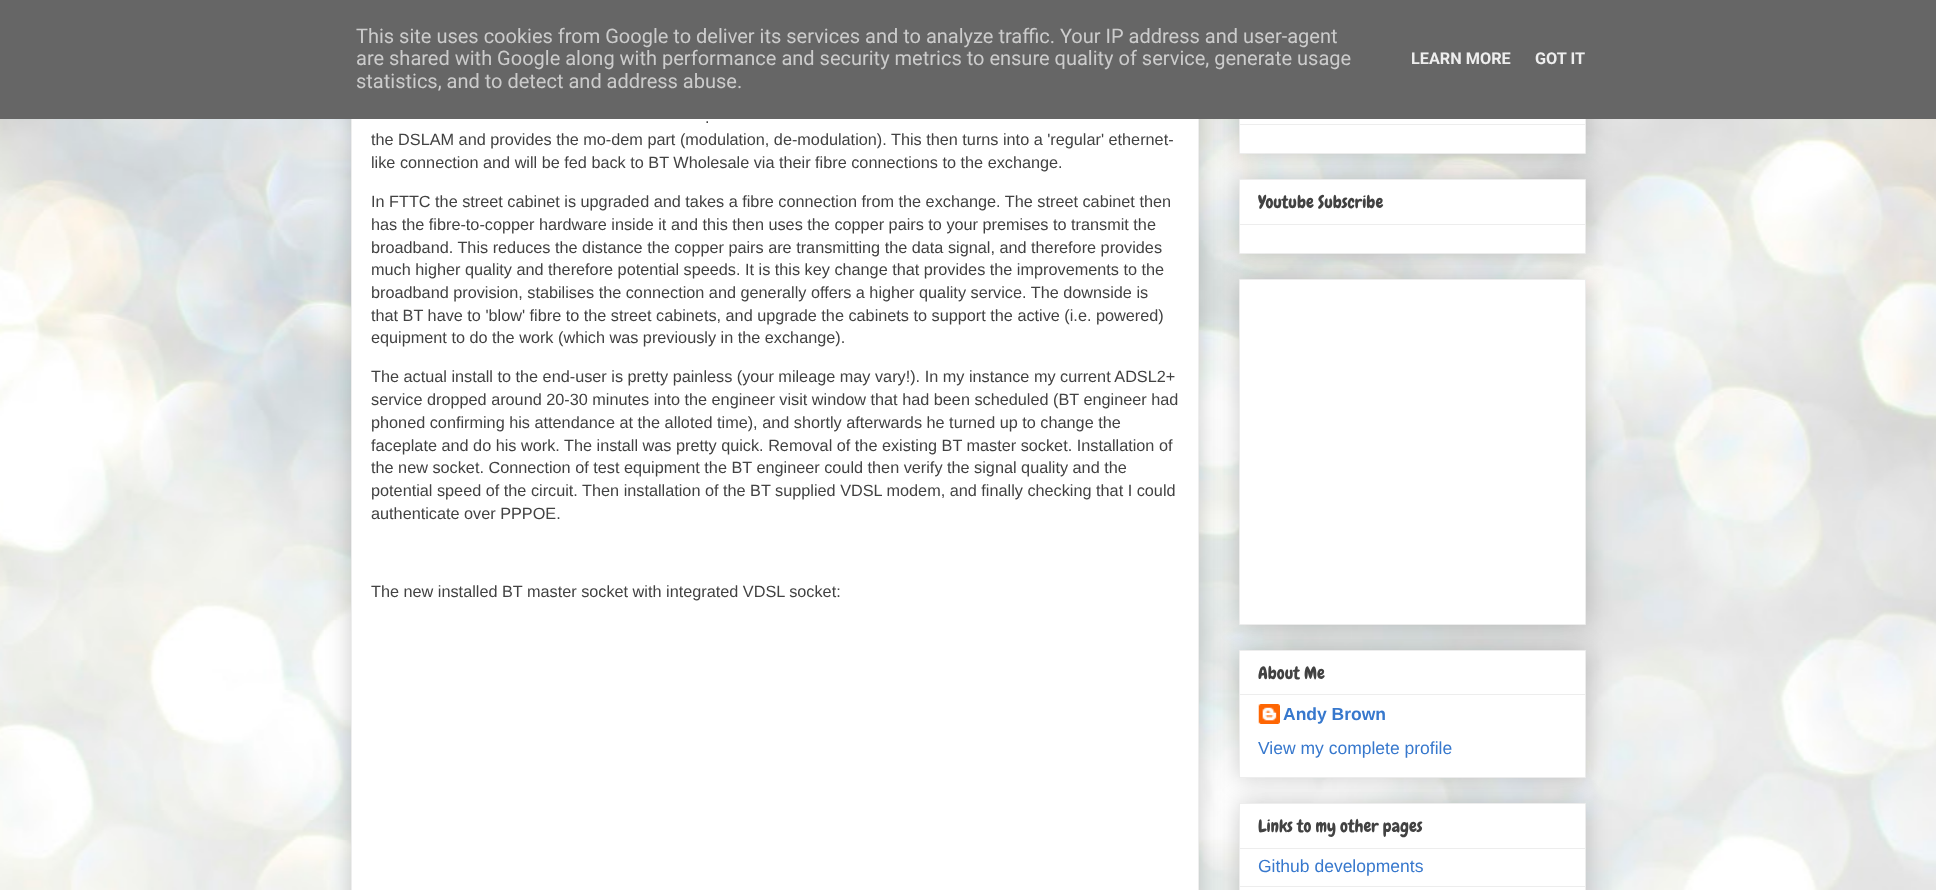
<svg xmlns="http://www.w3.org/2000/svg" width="1936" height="890">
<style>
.a{font:20px Roboto;fill:#ccc}
.b{font:bold 16.25px Roboto;fill:#eee}
.c{font:16.25px Liberation Sans;fill:#424242}
.d{font:17.5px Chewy;fill:#424242}
.e{font:bold 17.5px Liberation Sans;fill:#3778cd}
.f{font:17.5px Liberation Sans;fill:#3778cd}
</style>
<rect width="100%" height="100%" fill="#fff"/>
<image href="1.png" x="0" y="119" width="1936" height="771"/>
<path fill="#00000033" filter="blur(12.5px)" d="M351 -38h848v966H351z"/>
<path fill="#fff" d="M352 119h846v771H352z"/>
<path fill="none" stroke="#eee" d="M351.5 -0.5h847v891H351.5z"/>
<path fill="#00000033" filter="blur(12.5px)" d="M1239 80h347v74H1239z"/>
<path fill="#fff" d="M1240 119h345v34H1240z"/>
<path fill="none" stroke="#ededed" d="M1239.5 80.5h346v73H1239.5z"/>
<path fill="#666" d="M0 0h1936v119H0z"/>
<path fill="#ededed" d="M1240 124h345v1H1240z"/>
<path fill="#00000033" filter="blur(12.5px)" d="M1239 179h347v75H1239z"/>
<path fill="#fff" stroke="#ededed" d="M1239.5 179.5h346v74H1239.5z"/>
<path fill="#ededed" d="M1240 224h345v1H1240z"/>
<path fill="#00000033" filter="blur(12.5px)" d="M1239 279h347v346H1239z"/>
<path fill="#fff" stroke="#ededed" d="M1239.5 279.5h346v345H1239.5z"/>
<path fill="#00000033" filter="blur(12.5px)" d="M1239 650h347v128H1239z"/>
<path fill="#fff" stroke="#ededed" d="M1239.5 650.5h346v127H1239.5z"/>
<path fill="#ededed" d="M1240 694h345v1H1240z"/>
<image href="2.png" x="1258" y="704" width="22" height="20"/>
<path fill="#00000033" filter="blur(12.5px)" d="M1239 803h347v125H1239z"/>
<path fill="#fff" stroke="#ededed" d="M1239.5 803.5h346v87H1239.5z"/>
<path fill="#ededed" d="M1240 848h345v1H1240z"/>
<path fill="#ededed" d="M1240 886h345v1H1240z"/>
<text class="a" x="356" y="43">This site uses cookies from Google to deliver its services and to analyze traffic. Your IP address and user-agent</text>
<text class="a" x="356" y="65">are shared with Google along with performance and security metrics to ensure quality of service, generate usage</text>
<text class="a" x="356" y="88">statistics, and to detect and address abuse.</text>
<text class="b" x="1411" y="64">LEARN MORE</text>
<text class="b" x="1535" y="64">GOT IT</text>
<text class="c" x="705" y="123">.</text>
<text class="c" x="371" y="145">the DSLAM and provides the mo-dem part (modulation, de-modulation). This then turns into a 'regular' ethernet-</text>
<text class="c" x="371" y="168">like connection and will be fed back to BT Wholesale via their fibre connections to the exchange.</text>
<text class="c" x="371" y="207">In FTTC the street cabinet is upgraded and takes a fibre connection from the exchange. The street cabinet then</text>
<text class="c" x="371" y="230">has the fibre-to-copper hardware inside it and this then uses the copper pairs to your premises to transmit the</text>
<text class="c" x="371" y="253">broadband. This reduces the distance the copper pairs are transmitting the data signal, and therefore provides</text>
<text class="c" x="371" y="275">much higher quality and therefore potential speeds. It is this key change that provides the improvements to the</text>
<text class="c" x="371" y="298">broadband provision, stabilises the connection and generally offers a higher quality service. The downside is</text>
<text class="c" x="371" y="321">that BT have to 'blow' fibre to the street cabinets, and upgrade the cabinets to support the active (i.e. powered)</text>
<text class="c" x="371" y="343">equipment to do the work (which was previously in the exchange).</text>
<text class="c" x="371" y="382">The actual install to the end-user is pretty painless (your mileage may vary!). In my instance my current ADSL2+</text>
<text class="c" x="371" y="405">service dropped around 20-30 minutes into the engineer visit window that had been scheduled (BT engineer had</text>
<text class="c" x="371" y="428">phoned confirming his attendance at the alloted time), and shortly afterwards he turned up to change the</text>
<text class="c" x="371" y="451">faceplate and do his work. The install was pretty quick. Removal of the existing BT master socket. Installation of</text>
<text class="c" x="371" y="473">the new socket. Connection of test equipment the BT engineer could then verify the signal quality and the</text>
<text class="c" x="371" y="496">potential speed of the circuit. Then installation of the BT supplied VDSL modem, and finally checking that I could</text>
<text class="c" x="371" y="519">authenticate over PPPOE.</text>
<text class="c" x="371" y="597">The new installed BT master socket with integrated VDSL socket:</text>
<text class="d" x="1258" y="208">Youtube Subscribe</text>
<text class="d" x="1258" y="679">About Me</text>
<text class="e" x="1283" y="720">Andy Brown</text>
<text class="f" x="1258" y="754">View my complete profile</text>
<text class="d" x="1258" y="832">Links to my other pages</text>
<text class="f" x="1258" y="872">Github developments</text>
</svg>
